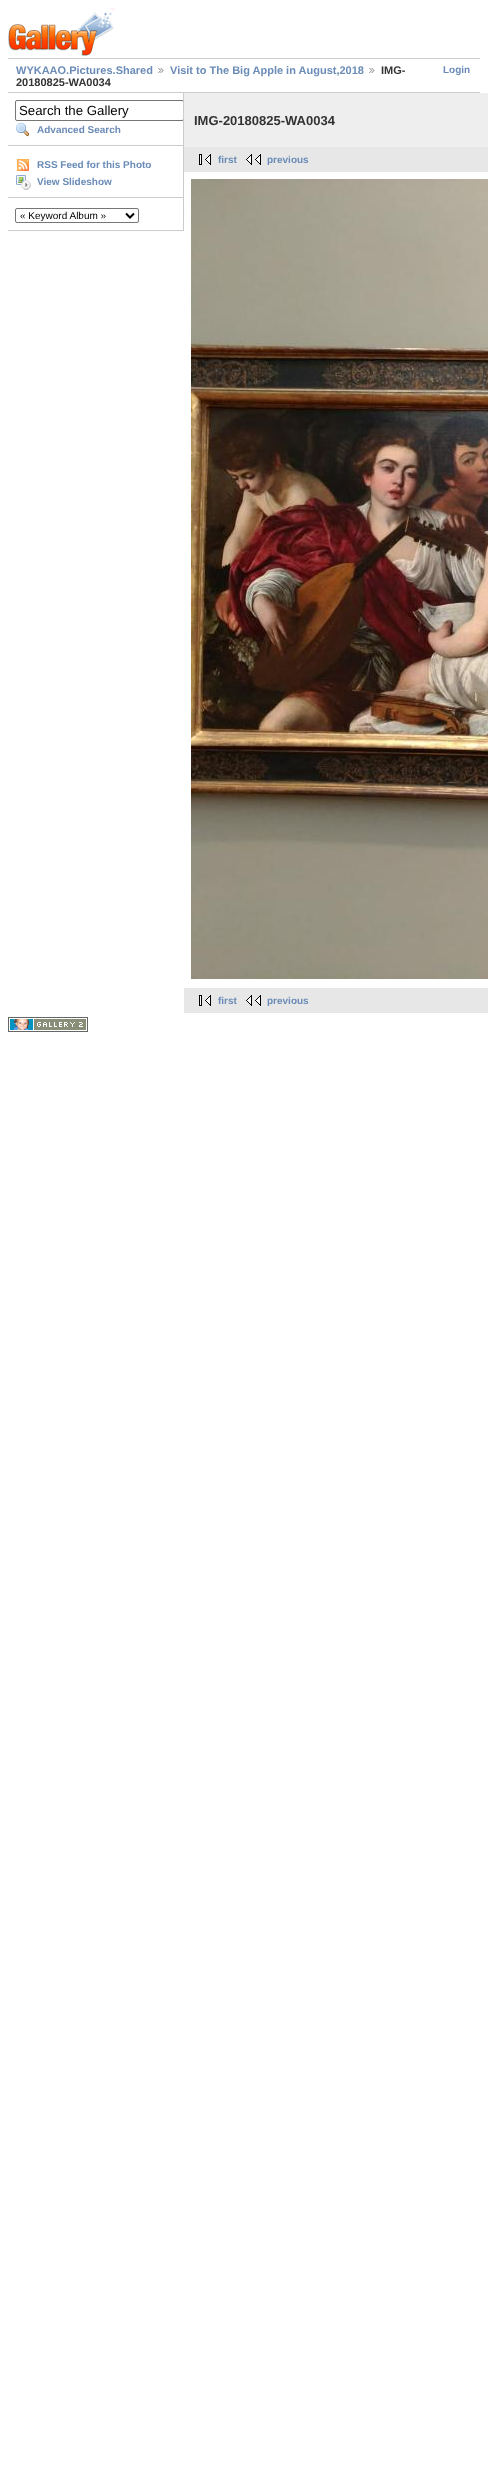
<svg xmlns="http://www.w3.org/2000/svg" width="488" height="2490">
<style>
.a{font:bold 11px Liberation Sans;fill:#6b8cb7}
.b{font:bold 11px Liberation Sans;fill:#333}
.c{font:bold 10px Liberation Sans;fill:#6b8cb7}
.d{font:13.25px Liberation Sans;fill:#000}
.e{font:10px Liberation Sans;fill:#000}
.f{font:bold 13px Liberation Sans;fill:#333}
</style>
<defs>
<clipPath id="clip1"><path d="M8 93h175v138H8z"/></clipPath>
</defs>
<rect width="100%" height="100%" fill="#fff"/>
<image href="1.png" x="8" y="8" width="107" height="48"/>
<path fill="#ccc" d="M8 58h472v1H8z"/>
<path fill="#ccc" d="M8 92h472v1H8z"/>
<image href="2.png" x="158" y="68" width="6" height="5"/>
<image href="2.png" x="369" y="68" width="6" height="5"/>
<path fill="#ccc" d="M183 93h1v138H183z"/>
<path fill="#ccc" d="M8 145h175v1H8z"/>
<g clip-path="url(#clip1)">
<rect fill="none" stroke="#767676" x="15.5" y="100.5" width="168" height="20" rx="1.5"/>
</g>
<image href="3.png" x="16" y="123" width="13" height="14"/>
<path fill="#ccc" d="M8 197h175v1H8z"/>
<image href="4.png" x="17" y="159" width="12" height="12"/>
<image href="5.png" x="16" y="175" width="15" height="15"/>
<path fill="#ccc" d="M8 230h175v1H8z"/>
<rect fill="none" stroke="#767676" x="15.5" y="208.5" width="123" height="14" rx="1.5"/>
<path fill="none" stroke="#000" stroke-width="2" d="M126 213.5l4 4l4-4"/>
<path fill="#eee" d="M184 93h304v54H184z"/>
<path fill="#e7e7e7" d="M184 147h304v25H184z"/>
<image href="6.png" x="199" y="154" width="12" height="11"/>
<image href="7.png" x="246" y="154" width="15" height="11"/>
<image href="8.png" x="191" y="179" width="297" height="800"/>
<path fill="#e7e7e7" d="M184 988h304v25H184z"/>
<image href="6.png" x="199" y="995" width="12" height="11"/>
<image href="7.png" x="246" y="995" width="15" height="11"/>
<image href="9.png" x="8" y="1017" width="80" height="15"/>
<text class="a" x="16" y="74">WYKAAO.Pictures.Shared</text>
<text class="a" x="170" y="74">Visit to The Big Apple in August,2018</text>
<text class="b" x="381" y="74">IMG-</text>
<text class="b" x="16" y="86">20180825-WA0034</text>
<text class="c" x="443" y="73">Login</text>
<text class="d" x="19" y="115">Search the Gallery</text>
<text class="c" x="37" y="133">Advanced Search</text>
<text class="c" x="37" y="168">RSS Feed for this Photo</text>
<text class="c" x="37" y="185">View Slideshow</text>
<text class="e" x="20" y="219">« Keyword Album »</text>
<text class="f" x="194" y="125">IMG-20180825-WA0034</text>
<text class="c" x="218" y="163">first</text>
<text class="c" x="267" y="163">previous</text>
<text class="c" x="218" y="1004">first</text>
<text class="c" x="267" y="1004">previous</text>
</svg>
